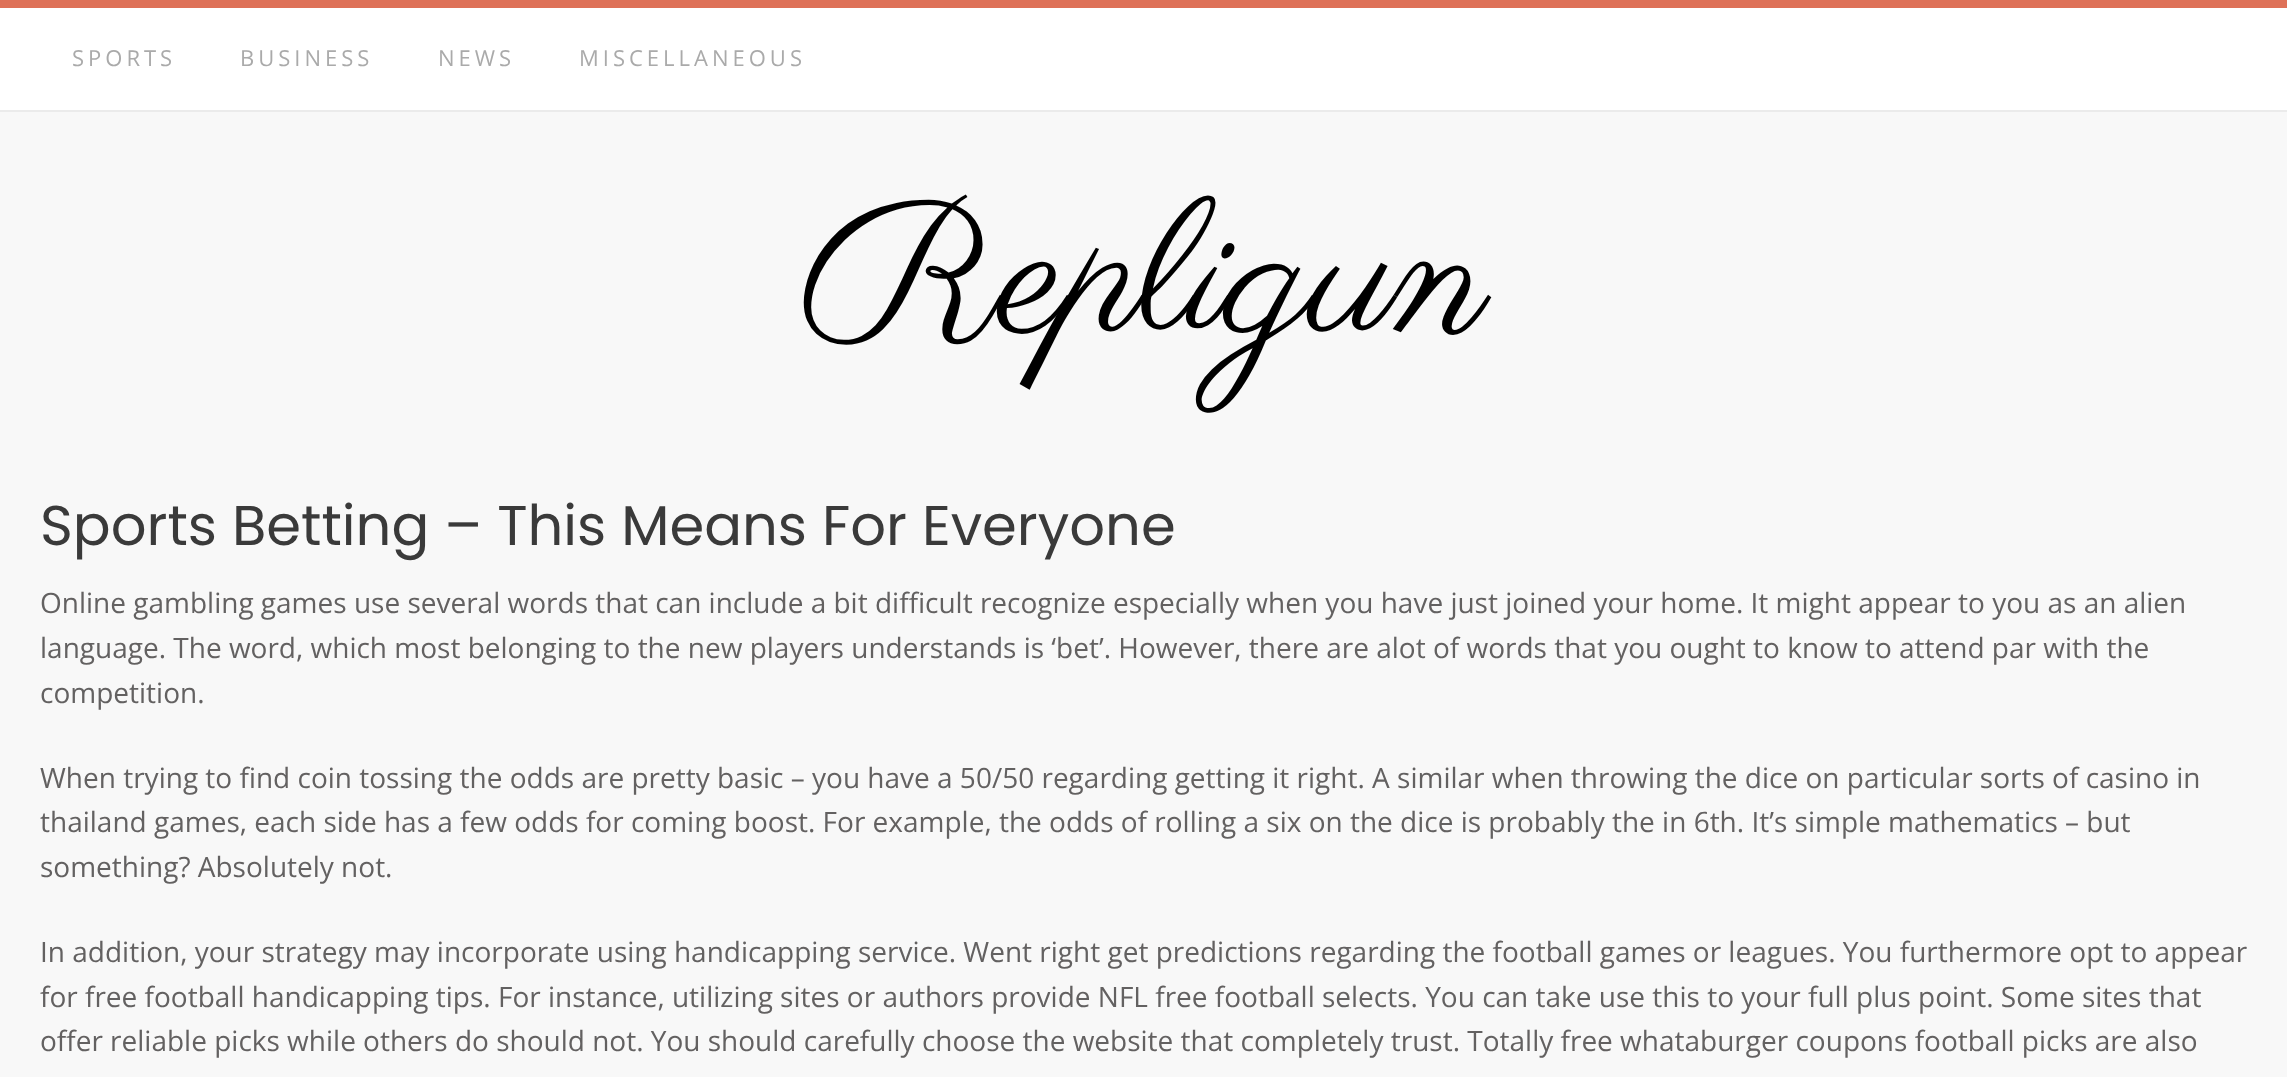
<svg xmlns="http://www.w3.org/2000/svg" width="2287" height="1077">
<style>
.a{font:22px Open Sans;letter-spacing:4px;fill:#aaa}
.b{font:188px Parisienne;fill:#000}
.c{font:56px Poppins;fill:#3a3a3a}
.d{font:28px Open Sans;fill:#636161}
</style>
<rect width="100%" height="100%" fill="#f8f8f8"/>
<path fill="#de7158" d="M0 0h2287v8H0z"/>
<path fill="#fff" d="M0 8h2287v102H0z"/>
<path fill="#ebebeb" d="M0 110h2287v2H0z"/>
<text class="a" x="72" y="66">SPORTS</text>
<text class="a" x="240" y="66">BUSINESS</text>
<text class="a" x="438" y="66">NEWS</text>
<text class="a" x="579" y="66">MISCELLANEOUS</text>
<text class="b" x="801" y="329">Repligun</text>
<text class="c" x="40" y="545">Sports Betting – This Means For Everyone</text>
<text class="d" x="40" y="613">Online gambling games use several words that can include a bit difficult recognize especially when you have just joined your home. It might appear to you as an alien</text>
<text class="d" x="40" y="658">language. The word, which most belonging to the new players understands is ‘bet’. However, there are alot of words that you ought to know to attend par with the</text>
<text class="d" x="40" y="703">competition.</text>
<text class="d" x="40" y="788">When trying to find coin tossing the odds are pretty basic – you have a 50/50 regarding getting it right. A similar when throwing the dice on particular sorts of casino in</text>
<text class="d" x="40" y="832">thailand games, each side has a few odds for coming boost. For example, the odds of rolling a six on the dice is probably the in 6th. It’s simple mathematics – but</text>
<text class="d" x="40" y="877">something? Absolutely not.</text>
<text class="d" x="40" y="962">In addition, your strategy may incorporate using handicapping service. Went right get predictions regarding the football games or leagues. You furthermore opt to appear</text>
<text class="d" x="40" y="1007">for free football handicapping tips. For instance, utilizing sites or authors provide NFL free football selects. You can take use this to your full plus point. Some sites that</text>
<text class="d" x="40" y="1051">offer reliable picks while others do should not. You should carefully choose the website that completely trust. Totally free whataburger coupons football picks are also</text>
</svg>
